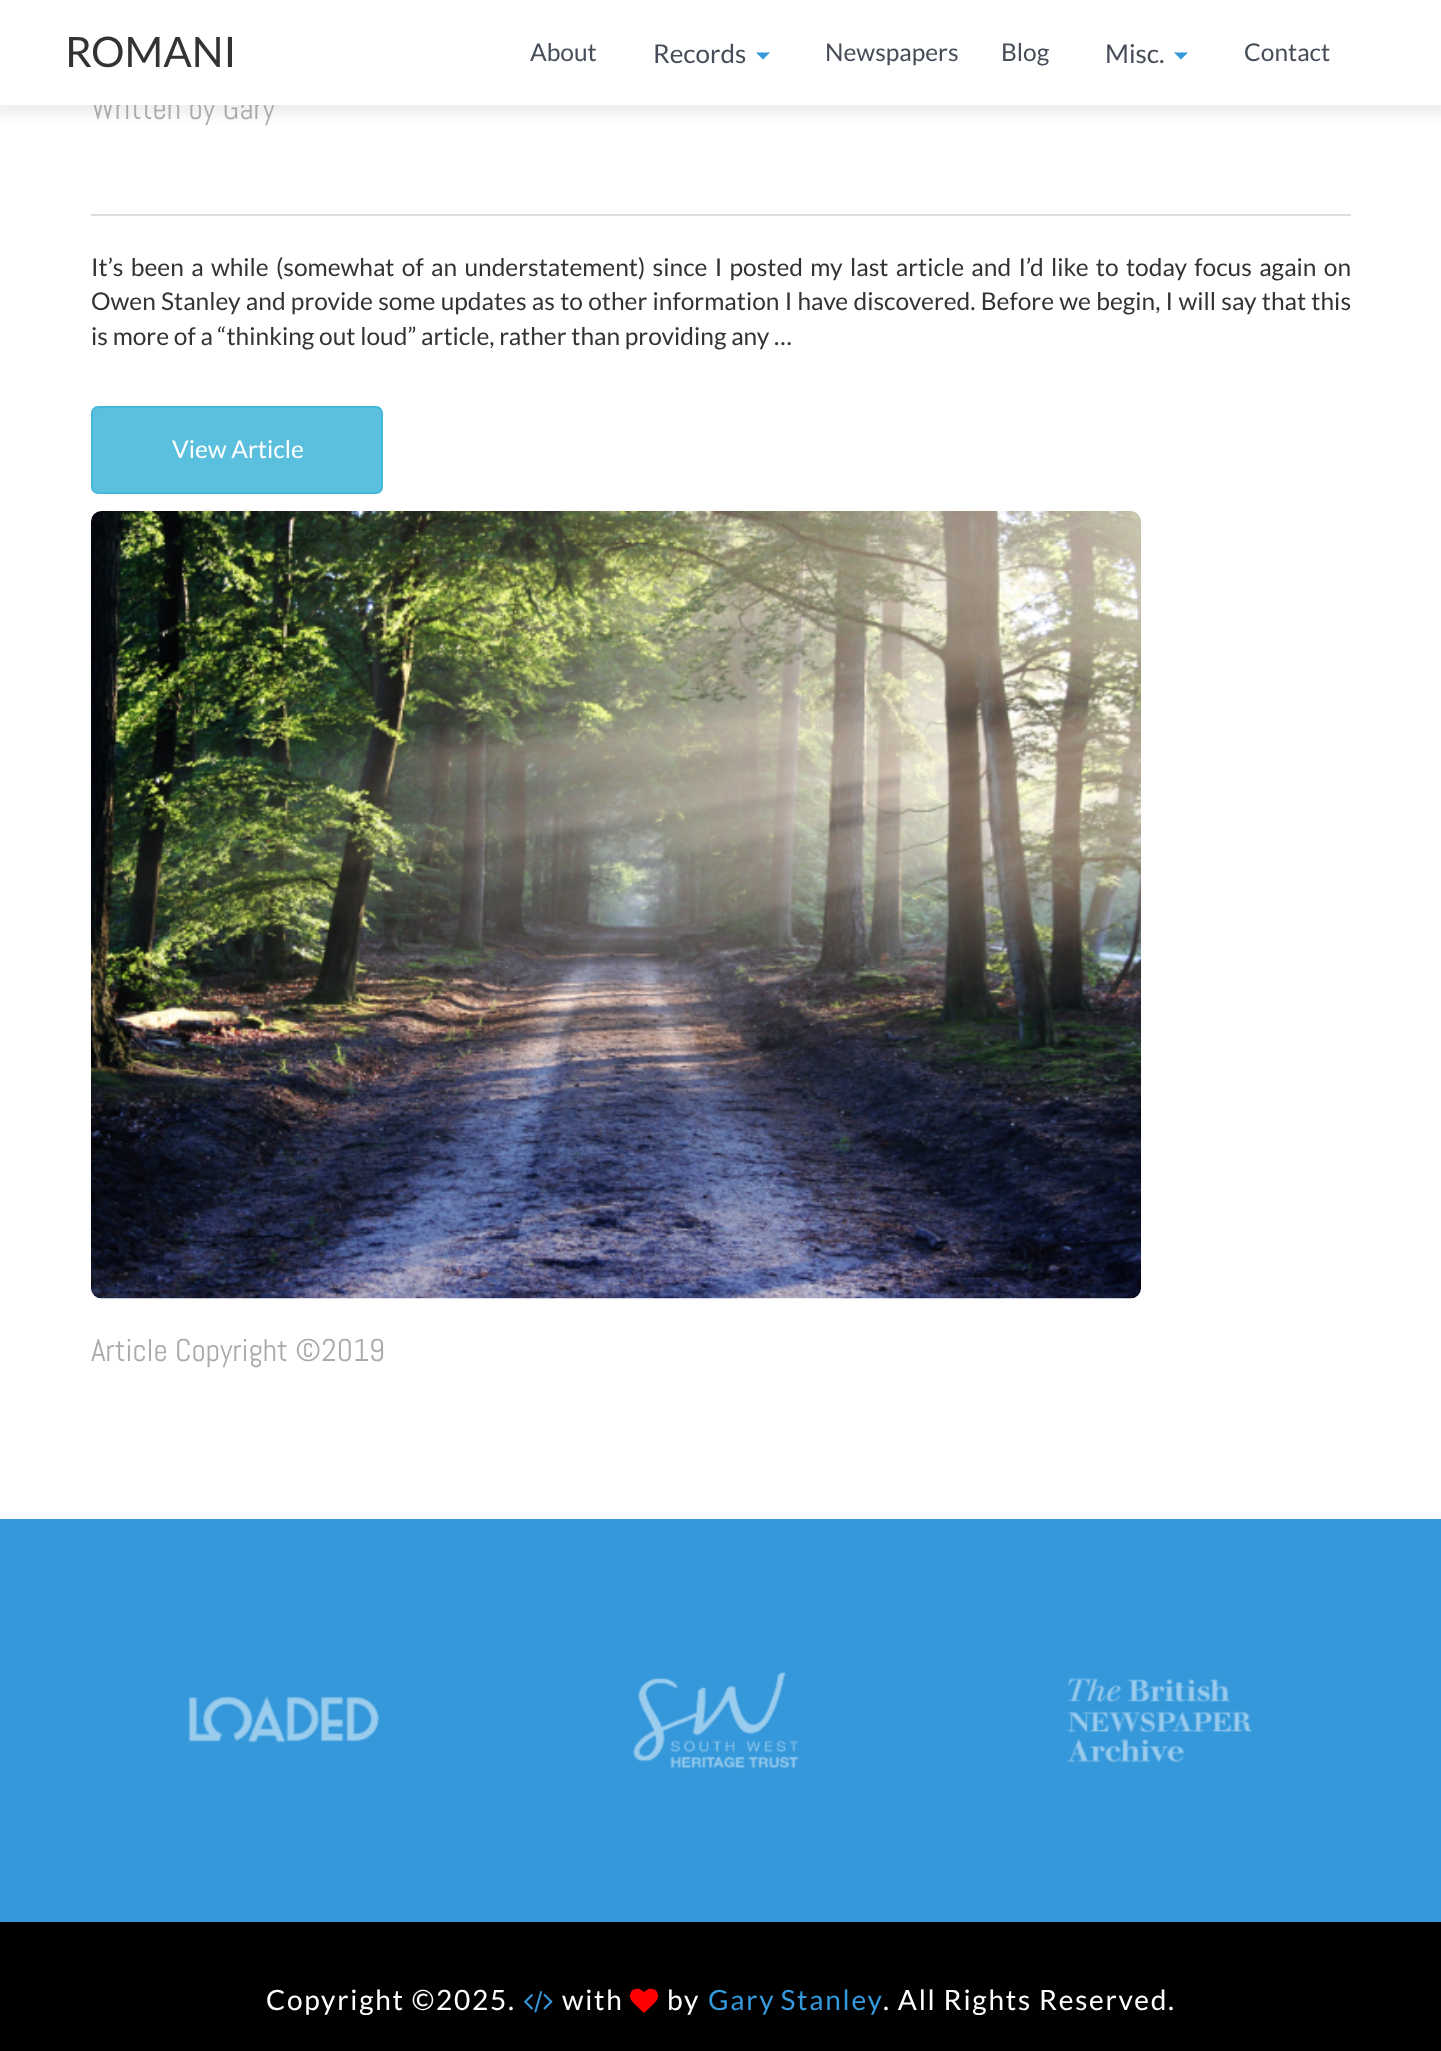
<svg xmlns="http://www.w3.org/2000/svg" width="1441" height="2051">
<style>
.a{font:31.5px Abel;fill:#aaa}
.b{font:24.5px Lato;fill:#464d58}
.c{font:26px Lato;fill:#464d58}
.d{font:42px Lato;fill:#333}
.e{font:24.5px Lato;fill:#333}
.f{font:24.5px Lato;fill:#fff}
.g{font:28px Lato;letter-spacing:1.75px;fill:#fff}
.h{font:28px Lato;letter-spacing:1.75px;fill:#3498db}
</style>
<rect width="100%" height="100%" fill="#fff"/>
<path fill="#0000000f" filter="blur(5px)" d="M-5 0h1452v116H-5z"/>
<path fill="#ddd" d="M91 214h1260v2H91z"/>
<rect fill="#5bc0de" stroke="#46b8da" stroke-width="2" x="92" y="407" width="290" height="86" rx="6"/>
<image href="1.png" x="91" y="511" width="1050" height="788"/>
<path fill="#3498db" d="M0 1519h1441v403H0z"/>
<image href="2.png" x="188" y="1696" width="192" height="47"/>
<image href="3.png" x="632" y="1672" width="167" height="97"/>
<image href="4.png" x="1067" y="1678" width="186" height="85"/>
<path fill="#000" d="M0 1922h1441v129H0z"/>
<image href="5.png" x="524" y="1991" width="29" height="22"/>
<image href="6.png" x="630" y="1988" width="28" height="25"/>
<text class="a" x="91" y="119">Written by Gary</text>
<path fill="#fff" d="M0 0h1441v105H0z"/>
<text class="b" x="1244" y="61">Contact</text>
<path fill="#3498db" d="M1174 52.5h14l-7 7z"/>
<text class="c" x="1105" y="63">Misc.</text>
<text class="b" x="1001" y="61">Blog</text>
<text class="b" x="825" y="61">Newspapers</text>
<path fill="#3498db" d="M756 52.5h14l-7 7z"/>
<text class="c" x="653" y="63">Records</text>
<text class="b" x="530" y="61">About</text>
<text class="d" x="65" y="67">ROMANI</text>
<text class="e" x="91" y="276" word-spacing="2.6">It’s been a while (somewhat of an understatement) since I posted my last article and I’d like to today focus again on</text>
<text class="e" x="91" y="310" word-spacing="0.55">Owen Stanley and provide some updates as to other information I have discovered. Before we begin, I will say that this</text>
<text class="e" x="91" y="345">is more of a “thinking out loud” article, rather than providing any …</text>
<text class="f" x="172" y="458">View Article</text>
<text class="a" x="91" y="1361">Article Copyright ©2019</text>
<text class="g" x="266" y="2010">Copyright ©2025.</text>
<text class="g" x="562" y="2010">with</text>
<text class="g" x="667" y="2010">by</text>
<text class="h" x="708" y="2010" word-spacing="-2">Gary Stanley</text>
<text class="g" x="883" y="2010">. All Rights Reserved.</text>
</svg>
